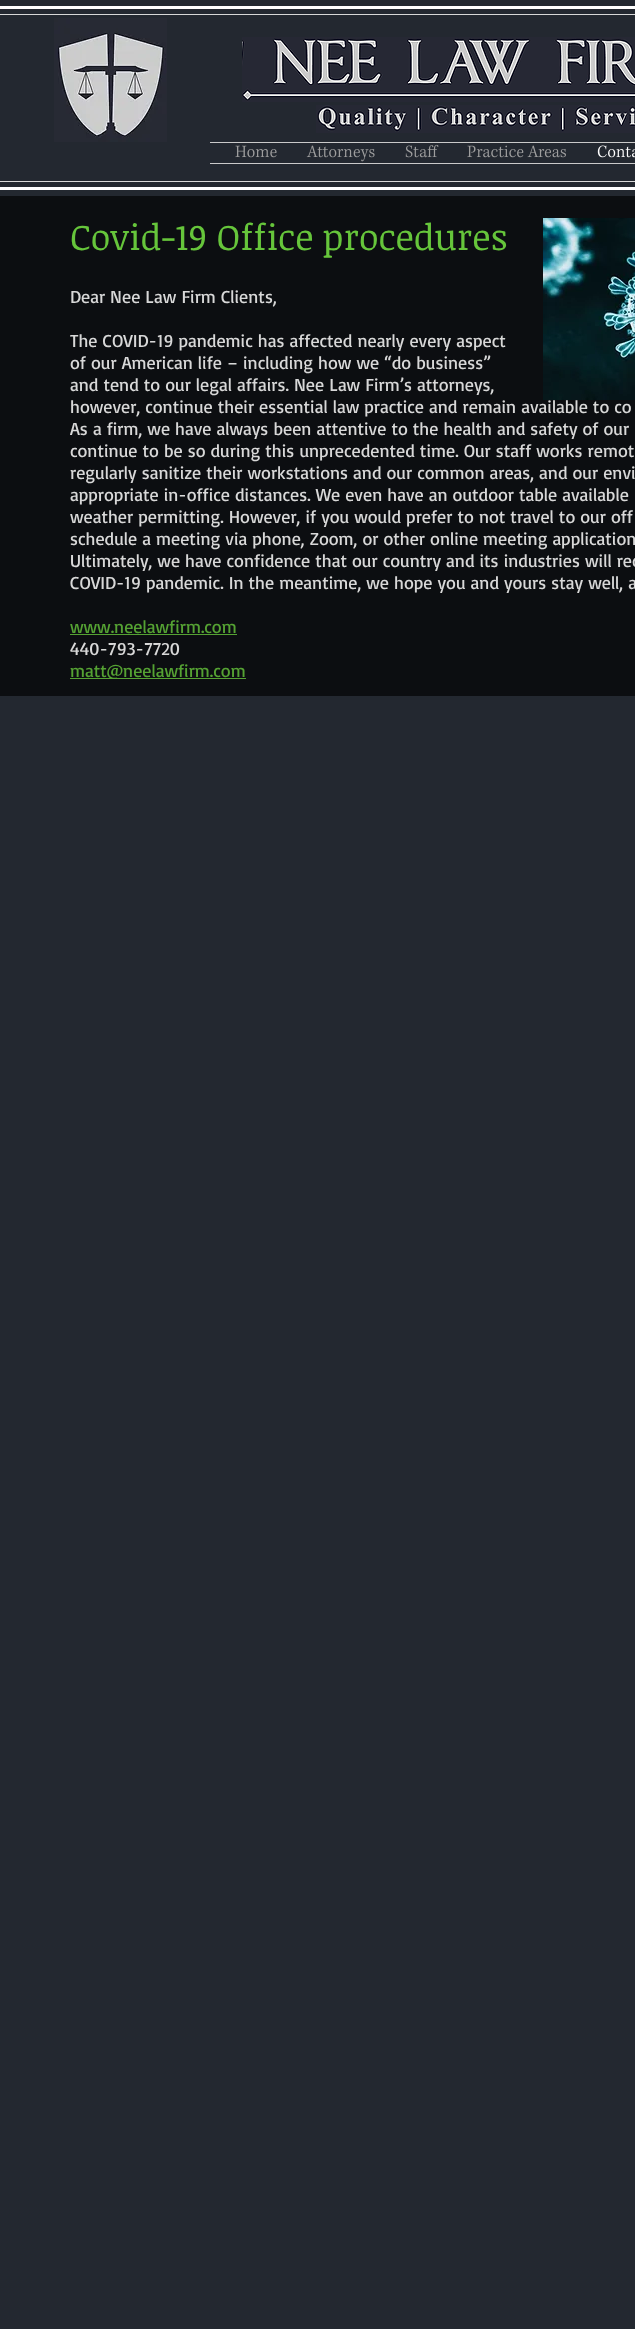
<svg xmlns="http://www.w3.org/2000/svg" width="635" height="2329">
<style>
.a{font:36px Noticia Text;fill:#66c53b}
.b{font:18px Basic;fill:#d8d8d8}
.c{font:18px Basic;fill:#55a233}
</style>
<rect width="100%" height="100%" fill="#232830"/>
<path fill="#0c0e11" d="M0 196h635v500H0z"/>
<path fill="#fff" d="M0 6h635v3H0z"/>
<path fill="#fff" d="M0 187h635v3H0z"/>
<path fill="#d8d8d8" d="M0 14h635v1H0z"/>
<path fill="#d8d8d8" d="M0 181h635v1H0z"/>
<image href="1.png" x="54" y="18" width="113" height="124"/>
<image href="2.png" x="242" y="37" width="393" height="65"/>
<image href="3.png" x="316" y="105" width="319" height="28"/>
<path fill="#cacaca" d="M210 142h425v1H210z"/>
<path fill="#cacaca" d="M210 163h425v1H210z"/>
<image href="4.png" x="235" y="145" width="42" height="13"/>
<image href="5.png" x="306" y="145" width="69" height="17"/>
<image href="6.png" x="405" y="144" width="34" height="14"/>
<image href="7.png" x="467" y="145" width="99" height="13"/>
<image href="8.png" x="597" y="145" width="38" height="13"/>
<image href="9.png" x="543" y="218" width="92" height="182"/>
<path fill="#55a233" d="M70 634h167v1H70z"/>
<path fill="#55a233" d="M70 678h176v1H70z"/>
<text class="a" x="70" y="250">Covid-19 Office procedures</text>
<text class="b" x="70" y="303">Dear Nee Law Firm Clients,</text>
<text class="b" x="70" y="347">The COVID-19 pandemic has affected nearly every aspect</text>
<text class="b" x="70" y="369">of our American life – including how we “do business”</text>
<text class="b" x="70" y="391">and tend to our legal affairs. Nee Law Firm’s attorneys,</text>
<text class="b" x="70" y="413">however, continue their essential law practice and remain available to co</text>
<text class="b" x="70" y="435">As a firm, we have always been attentive to the health and safety of our</text>
<text class="b" x="70" y="457">continue to be so during this unprecedented time. Our staff works remot</text>
<text class="b" x="70" y="479">regularly sanitize their workstations and our common areas, and our envi</text>
<text class="b" x="70" y="501">appropriate in-office distances. We even have an outdoor table available</text>
<text class="b" x="70" y="523">weather permitting. However, if you would prefer to not travel to our off</text>
<text class="b" x="70" y="545">schedule a meeting via phone, Zoom, or other online meeting application</text>
<text class="b" x="70" y="567">Ultimately, we have confidence that our country and its industries will rec</text>
<text class="b" x="70" y="589">COVID-19 pandemic. In the meantime, we hope you and yours stay well, a</text>
<text class="c" x="70" y="633">www.neelawfirm.com</text>
<text class="b" x="70" y="655">440-793-7720</text>
<text class="c" x="70" y="677">matt@neelawfirm.com</text>
</svg>
